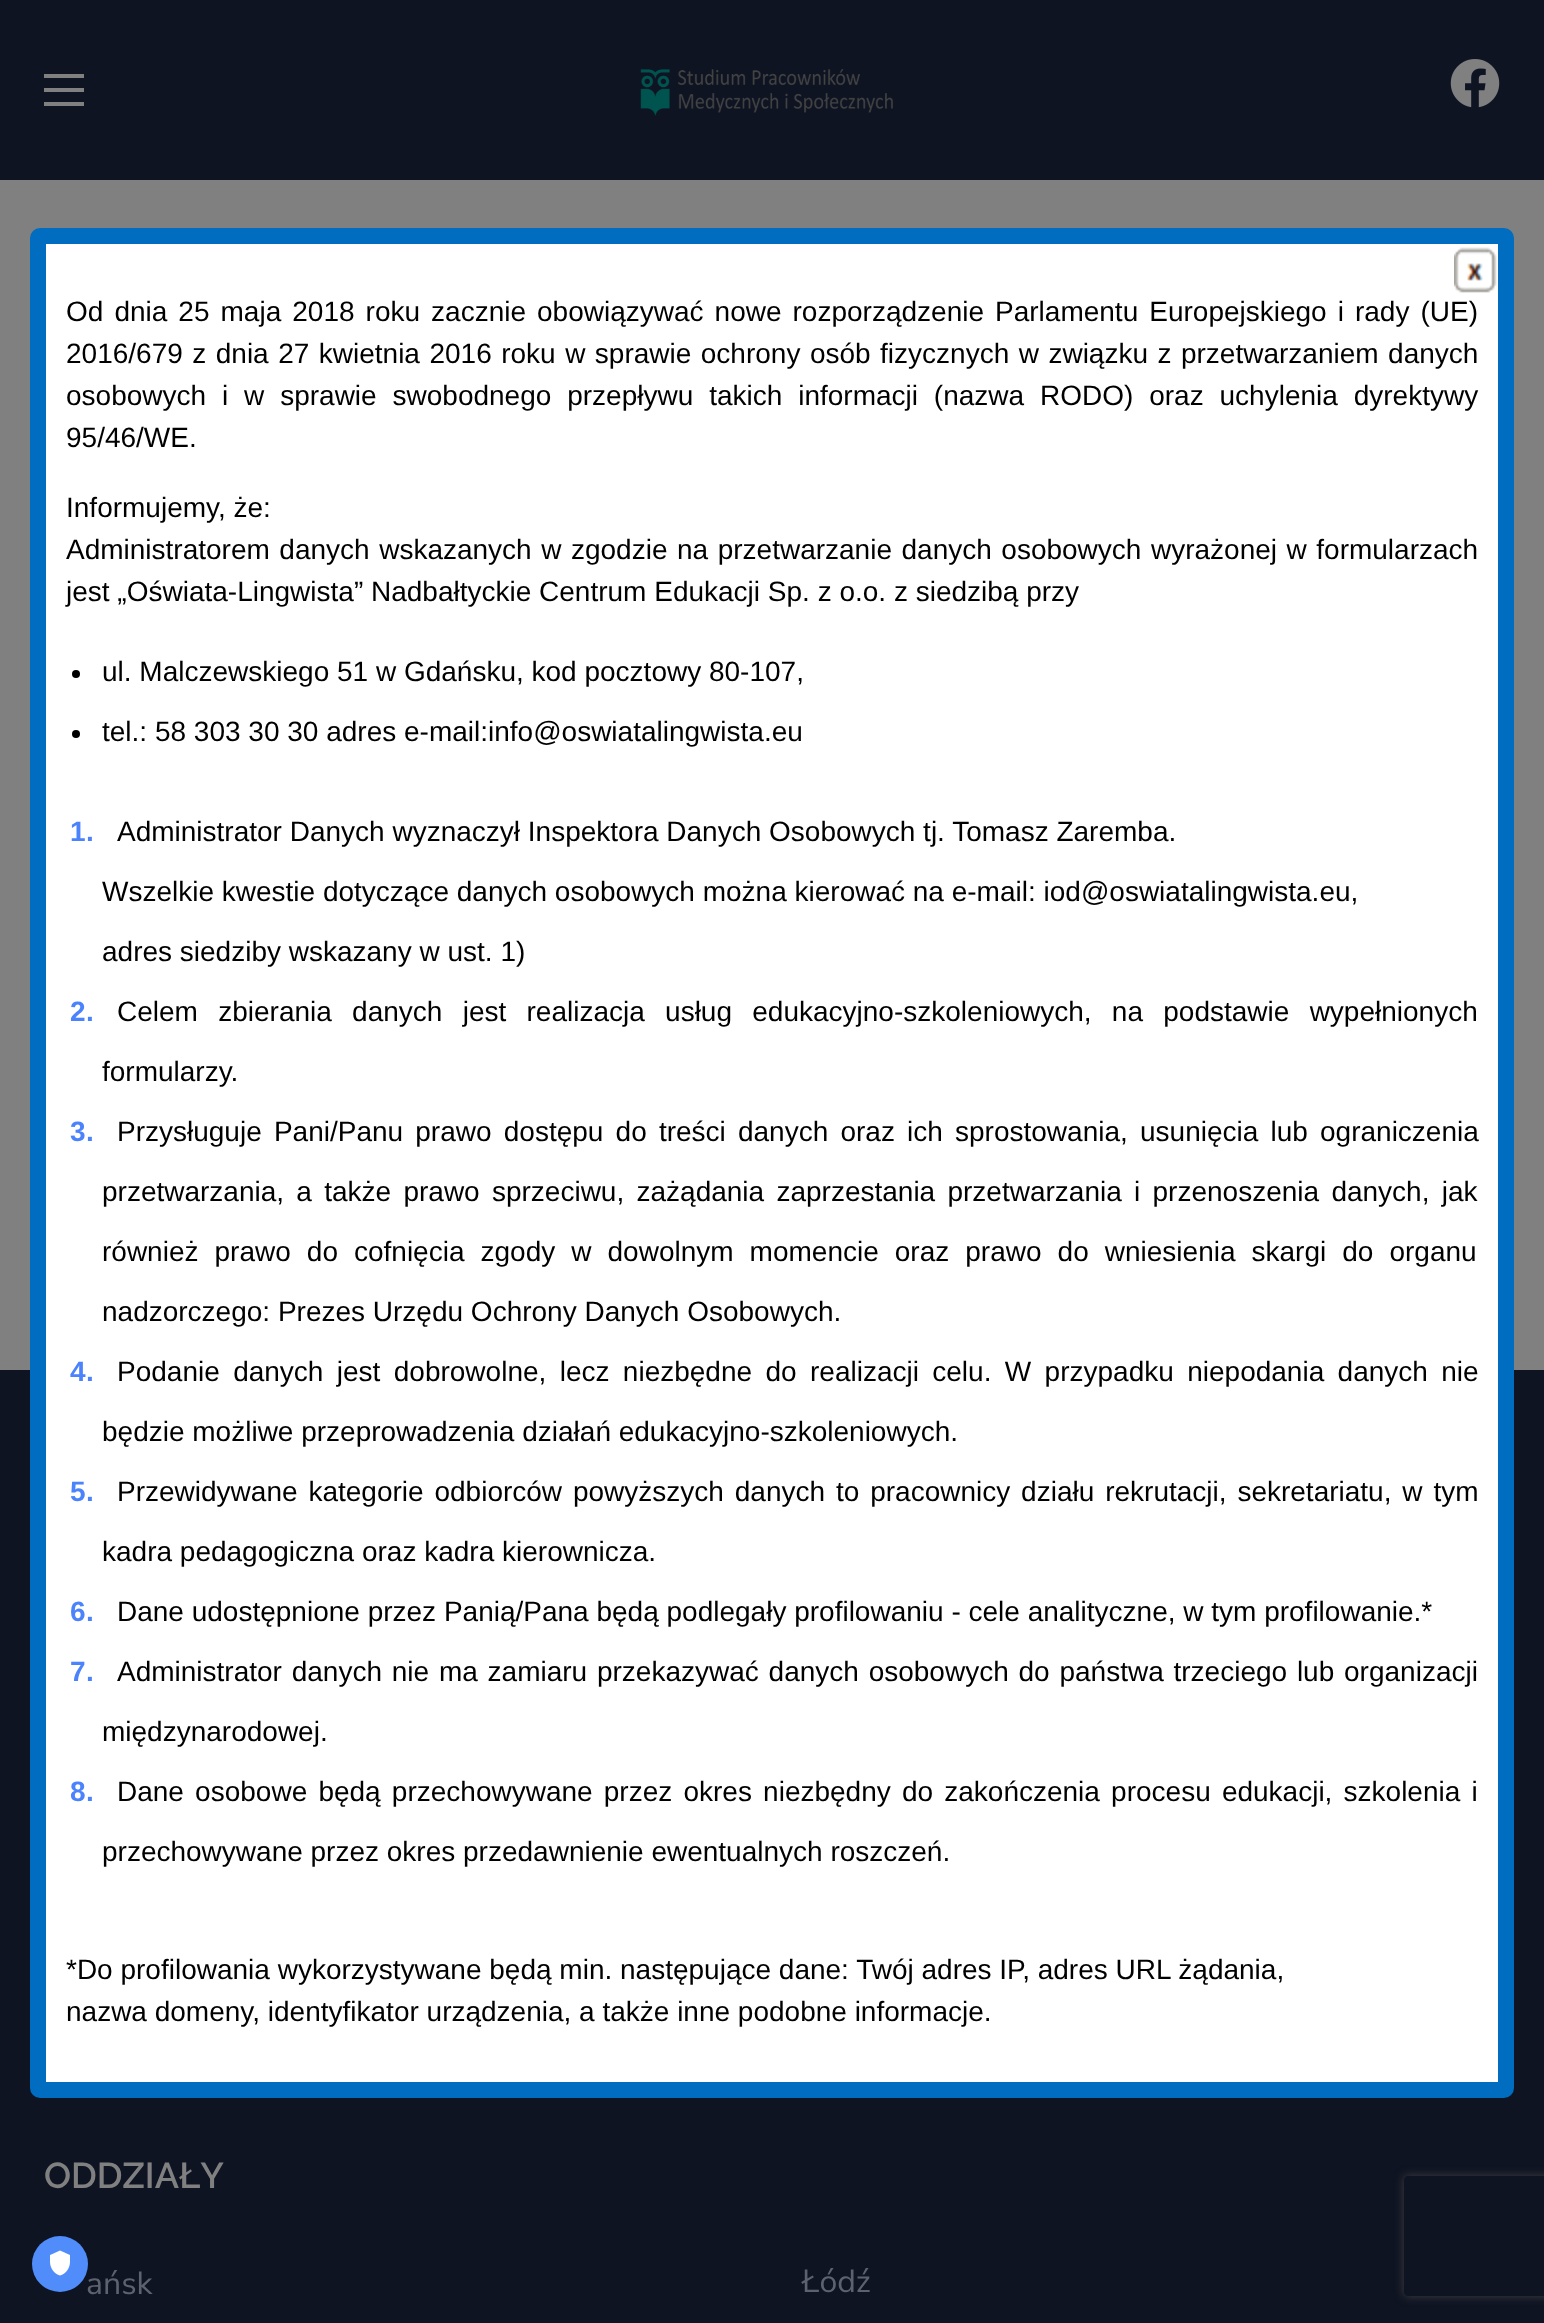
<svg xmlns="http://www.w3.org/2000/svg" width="1544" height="2323">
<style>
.a{font:28px Liberation Sans;fill:#000}
.b{font:bold 28px Liberation Sans;fill:#4b83fc}
.c{font:600 36px Raleway;fill:#808080}
.d{font:32px Nunito Sans;fill:#5d6271}
</style>
<defs>
<clipPath id="clip1"><path d="M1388 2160h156v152h-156zm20 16h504c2 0 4 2 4 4v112c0 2-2 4-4 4h-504c-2 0-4-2-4-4v-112c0-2 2-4 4-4z" clip-rule="evenodd"/></clipPath>
</defs>
<rect width="100%" height="100%" fill="#808080"/>
<path fill="#0f1423" d="M0 0h1544v180H0z"/>
<path fill="#808080" d="M44 74h40v4H44z"/>
<path fill="#808080" d="M44 88h40v4H44z"/>
<path fill="#808080" d="M44 102h40v4H44z"/>
<image href="1.png" x="640" y="69" width="253" height="47"/>
<image href="2.png" x="1450" y="59" width="50" height="49"/>
<path fill="#0f1423" d="M0 1370h1544v953H0z"/>
<rect fill="#fff" stroke="#006dc1" stroke-width="16" x="38" y="236" width="1468" height="1854" rx="2"/>
<image href="3.png" x="1454" y="247" width="43" height="46"/>
<circle fill="#000" cx="76" cy="674" r="4"/>
<circle fill="#000" cx="76" cy="734" r="4"/>
<g clip-path="url(#clip1)">
<rect fill="#404040" filter="blur(5px)" x="1404" y="2176" width="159" height="120" rx="4"/>
</g>
<text class="a" x="66" y="321" word-spacing="3.25">Od dnia 25 maja 2018 roku zacznie obowiązywać nowe rozporządzenie Parlamentu Europejskiego i rady (UE)</text>
<text class="a" x="66" y="363" word-spacing="1.7">2016/679 z dnia 27 kwietnia 2016 roku w sprawie ochrony osób fizycznych w związku z przetwarzaniem danych</text>
<text class="a" x="66" y="405" word-spacing="8.1">osobowych i w sprawie swobodnego przepływu takich informacji (nazwa RODO) oraz uchylenia dyrektywy</text>
<text class="a" x="66" y="447">95/46/WE.</text>
<text class="a" x="66" y="517">Informujemy, że:</text>
<text class="a" x="66" y="559" word-spacing="1.75">Administratorem danych wskazanych w zgodzie na przetwarzanie danych osobowych wyrażonej w formularzach</text>
<text class="a" x="66" y="601">jest „Oświata-Lingwista” Nadbałtyckie Centrum Edukacji Sp. z o.o. z siedzibą przy</text>
<text class="a" x="102" y="681">ul. Malczewskiego 51 w Gdańsku, kod pocztowy 80-107,</text>
<text class="a" x="102" y="741">tel.: 58 303 30 30 adres e-mail:info@oswiatalingwista.eu</text>
<text class="b" x="70" y="841">1</text>
<text class="b" x="86" y="841">.</text>
<text class="a" x="117" y="841">Administrator Danych wyznaczył Inspektora Danych Osobowych tj. Tomasz Zaremba.</text>
<text class="a" x="102" y="901">Wszelkie kwestie dotyczące danych osobowych można kierować na e-mail: iod@oswiatalingwista.eu,</text>
<text class="a" x="102" y="961">adres siedziby wskazany w ust. 1)</text>
<text class="b" x="70" y="1021">2</text>
<text class="b" x="86" y="1021">.</text>
<text class="a" x="117" y="1021" word-spacing="12.5">Celem zbierania danych jest realizacja usług edukacyjno-szkoleniowych, na podstawie wypełnionych</text>
<text class="a" x="102" y="1081">formularzy.</text>
<text class="b" x="70" y="1141">3</text>
<text class="b" x="86" y="1141">.</text>
<text class="a" x="117" y="1141" word-spacing="4.4">Przysługuje Pani/Panu prawo dostępu do treści danych oraz ich sprostowania, usunięcia lub ograniczenia</text>
<text class="a" x="102" y="1201" word-spacing="4.5">przetwarzania, a także prawo sprzeciwu, zażądania zaprzestania przetwarzania i przenoszenia danych, jak</text>
<text class="a" x="102" y="1261" word-spacing="8.25">również prawo do cofnięcia zgody w dowolnym momencie oraz prawo do wniesienia skargi do organu</text>
<text class="a" x="102" y="1321">nadzorczego: Prezes Urzędu Ochrony Danych Osobowych.</text>
<text class="b" x="70" y="1381">4</text>
<text class="b" x="86" y="1381">.</text>
<text class="a" x="117" y="1381" word-spacing="5.6">Podanie danych jest dobrowolne, lecz niezbędne do realizacji celu. W przypadku niepodania danych nie</text>
<text class="a" x="102" y="1441">będzie możliwe przeprowadzenia działań edukacyjno-szkoleniowych.</text>
<text class="b" x="70" y="1501">5</text>
<text class="b" x="86" y="1501">.</text>
<text class="a" x="117" y="1501" word-spacing="3.1">Przewidywane kategorie odbiorców powyższych danych to pracownicy działu rekrutacji, sekretariatu, w tym</text>
<text class="a" x="102" y="1561">kadra pedagogiczna oraz kadra kierownicza.</text>
<text class="b" x="70" y="1621">6</text>
<text class="b" x="86" y="1621">.</text>
<text class="a" x="117" y="1621">Dane udostępnione przez Panią/Pana będą podlegały profilowaniu - cele analityczne, w tym profilowanie.*</text>
<text class="b" x="70" y="1681">7</text>
<text class="b" x="86" y="1681">.</text>
<text class="a" x="117" y="1681" word-spacing="2">Administrator danych nie ma zamiaru przekazywać danych osobowych do państwa trzeciego lub organizacji</text>
<text class="a" x="102" y="1741">międzynarodowej.</text>
<text class="b" x="70" y="1801">8</text>
<text class="b" x="86" y="1801">.</text>
<text class="a" x="117" y="1801" word-spacing="3.4">Dane osobowe będą przechowywane przez okres niezbędny do zakończenia procesu edukacji, szkolenia i</text>
<text class="a" x="102" y="1861">przechowywane przez okres przedawnienie ewentualnych roszczeń.</text>
<text class="a" x="66" y="1979">*Do profilowania wykorzystywane będą min. następujące dane: Twój adres IP, adres URL żądania,</text>
<text class="a" x="66" y="2021">nazwa domeny, identyfikator urządzenia, a także inne podobne informacje.</text>
<text class="c" x="44" y="2188">ODDZIAŁY</text>
<text class="d" x="86" y="2294">ańsk</text>
<text class="d" x="802" y="2292">Łódź</text>
<circle fill="#508dfa" cx="60" cy="2264" r="28"/>
<image href="4.png" x="50" y="2250" width="20" height="26"/>
</svg>
